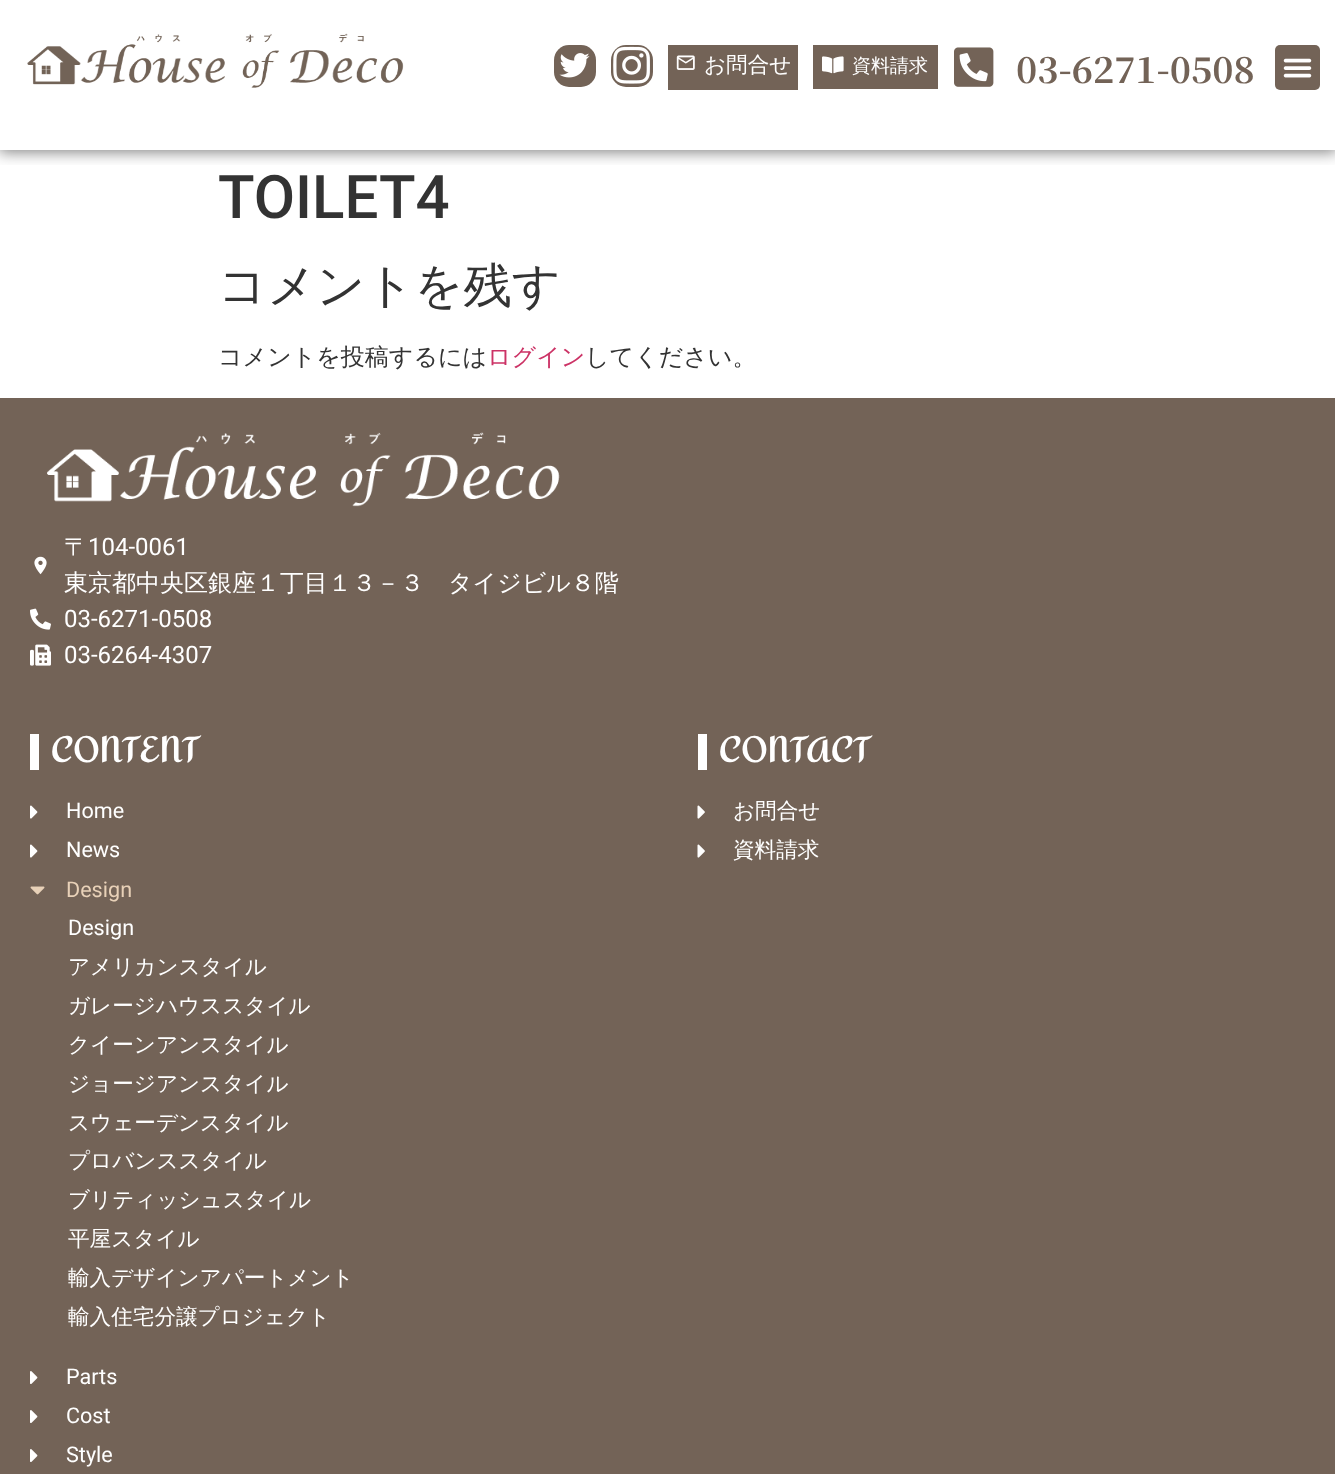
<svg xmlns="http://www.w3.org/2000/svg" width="1335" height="1474">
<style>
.a{font:500 21.6px WenQuanYi Zen Hei;fill:#fff}
.b{font:500 19px WenQuanYi Zen Hei;fill:#fff}
.c{font:bold 36px Noto Serif JP;fill:#736357}
.d{font:500 60px Roboto;fill:#333}
.e{font:500 48px WenQuanYi Zen Hei;fill:#333}
.f{font:500 24px WenQuanYi Zen Hei;fill:#333}
.g{font:500 24px WenQuanYi Zen Hei;fill:#c36}
.h{font:500 24px WenQuanYi Zen Hei;fill:#fff}
.i{font:24px Roboto;fill:#fff}
.j{font:bold 36px Amita;fill:#fff}
.k{font:21.6px Roboto;fill:#fff}
.l{font:21.6px Roboto;fill:#e8d1b8}
</style>
<defs>
<clipPath id="clip1"><path d="M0 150h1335v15H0z"/></clipPath>
</defs>
<rect width="100%" height="100%" fill="#fff"/>
<g clip-path="url(#clip1)">
<path fill="#00000080" filter="blur(7.5px)" d="M-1 -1h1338v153H-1z"/>
</g>
<image href="1.png" x="27" y="33" width="377" height="55"/>
<rect fill="#736357" x="554" y="45" width="42" height="42" rx="15"/>
<image href="2.png" x="559" y="53" width="31" height="25"/>
<rect fill="#736357" x="611" y="45" width="42" height="42" rx="15"/>
<image href="3.png" x="613" y="46" width="37" height="38"/>
<path fill="#736357" d="M668 45h130v45H668z"/>
<image href="4.png" x="676" y="55" width="19" height="15"/>
<path fill="#736357" d="M813 45h125v44H813z"/>
<image href="5.png" x="822" y="56" width="22" height="18"/>
<image href="6.png" x="954" y="47" width="40" height="40"/>
<rect fill="#736357" x="1275" y="45" width="45" height="45" rx="5"/>
<image href="7.png" x="1283" y="58" width="29" height="20"/>
<path fill="#736357" d="M0 398h1335v1076H0z"/>
<image href="8.png" x="47" y="432" width="513" height="75"/>
<image href="9.png" x="34" y="556" width="13" height="19"/>
<image href="10.png" x="30" y="608" width="21" height="22"/>
<image href="11.png" x="30" y="644" width="21" height="22"/>
<path fill="#fff" d="M30 734h9v36H30z"/>
<image href="12.png" x="30" y="805" width="8" height="14"/>
<image href="12.png" x="30" y="844" width="8" height="14"/>
<image href="13.png" x="30" y="886" width="15" height="9"/>
<image href="14.png" x="30" y="1371" width="8" height="13"/>
<image href="14.png" x="30" y="1410" width="8" height="13"/>
<image href="14.png" x="30" y="1449" width="8" height="13"/>
<path fill="#fff" d="M698 734h9v36H698z"/>
<image href="15.png" x="697" y="805" width="8" height="14"/>
<image href="15.png" x="697" y="844" width="8" height="14"/>
<text class="a" x="704" y="72">お問合せ</text>
<text class="b" x="852" y="72">資料請求</text>
<text class="c" x="1016" y="83">03-6271-0508</text>
<text class="d" x="218" y="218">TOILET4</text>
<text class="e" x="218" y="302">コメントを残す</text>
<text class="f" x="218" y="365">コメントを投稿するには</text>
<text class="g" x="487" y="365">ログイン</text>
<text class="f" x="585" y="365">してください。</text>
<text class="h" x="64" y="555">〒</text>
<text class="i" x="88" y="555">104-0061</text>
<text class="h" x="64" y="591">東京都中央区銀座１丁目１３－３　タイジビル８階</text>
<text class="i" x="64" y="627">03-6271-0508</text>
<text class="i" x="64" y="663">03-6264-4307</text>
<text class="j" x="51" y="762">CONTENT</text>
<text class="k" x="66" y="818">Home</text>
<text class="k" x="66" y="857">News</text>
<text class="l" x="66" y="897">Design</text>
<text class="k" x="68" y="935">Design</text>
<text class="a" x="68" y="974">アメリカンスタイル</text>
<text class="a" x="68" y="1013">ガレージハウススタイル</text>
<text class="a" x="68" y="1052">クイーンアンスタイル</text>
<text class="a" x="68" y="1091">ジョージアンスタイル</text>
<text class="a" x="68" y="1130">スウェーデンスタイル</text>
<text class="a" x="68" y="1168">プロバンススタイル</text>
<text class="a" x="68" y="1207">ブリティッシュスタイル</text>
<text class="a" x="68" y="1246">平屋スタイル</text>
<text class="a" x="68" y="1285">輸入デザインアパートメント</text>
<text class="a" x="68" y="1324">輸入住宅分譲プロジェクト</text>
<text class="k" x="66" y="1384">Parts</text>
<text class="k" x="66" y="1423">Cost</text>
<text class="k" x="66" y="1462">Style</text>
<text class="j" x="719" y="762">CONTACT</text>
<text class="a" x="733" y="818">お問合せ</text>
<text class="a" x="733" y="857">資料請求</text>
</svg>
